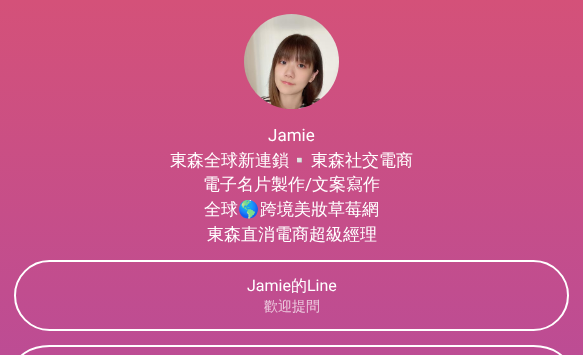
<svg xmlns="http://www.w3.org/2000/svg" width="583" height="355">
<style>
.a{font:17px Roboto;fill:#fff}
.b{font:500 17px WenQuanYi Zen Hei;fill:#fff}
.c{font:17px Noto Color Emoji;fill:#fff}
.d{font:16px Roboto;fill:#fff}
.e{font:500 16px WenQuanYi Zen Hei;fill:#fff}
.f{font:500 14px WenQuanYi Zen Hei;fill:#eccade}
</style>
<defs>
<linearGradient id="g1" gradientUnits="userSpaceOnUse" x1="291" y1="0" x2="292" y2="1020"><stop offset="0" stop-color="#d45179"/><stop offset="1" stop-color="#9143c6"/></linearGradient>
</defs>
<rect width="100%" height="100%" fill="#fff"/>
<path fill="url(#g1)" d="M0 0h583v355H0z"/>
<image href="1.png" x="244" y="14" width="95" height="95"/>
<rect fill="none" stroke="#fff" stroke-width="2" x="15" y="261" width="553" height="69" rx="34.5"/>
<rect fill="none" stroke="#fff" stroke-width="2" x="15" y="346" width="553" height="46" rx="34.5"/>
<text class="a" x="268" y="141">Jamie</text>
<text class="b" x="170" y="166">東森全球新連鎖</text>
<text class="c" x="289" y="166">▫️</text>
<text class="b" x="311" y="166">東森社交電商</text>
<text class="b" x="203" y="190">電子名片製作</text>
<text class="a" x="305" y="190">/</text>
<text class="b" x="312" y="190">文案寫作</text>
<text class="b" x="204" y="215">全球</text>
<text class="c" x="238" y="215">🌎</text>
<text class="b" x="260" y="215">跨境美妝草莓網</text>
<text class="b" x="207" y="240">東森直消電商超級經理</text>
<text class="d" x="247" y="291">Jamie</text>
<text class="e" x="291" y="291">的</text>
<text class="d" x="307" y="291">Line</text>
<text class="f" x="264" y="311">歡迎提問</text>
</svg>
